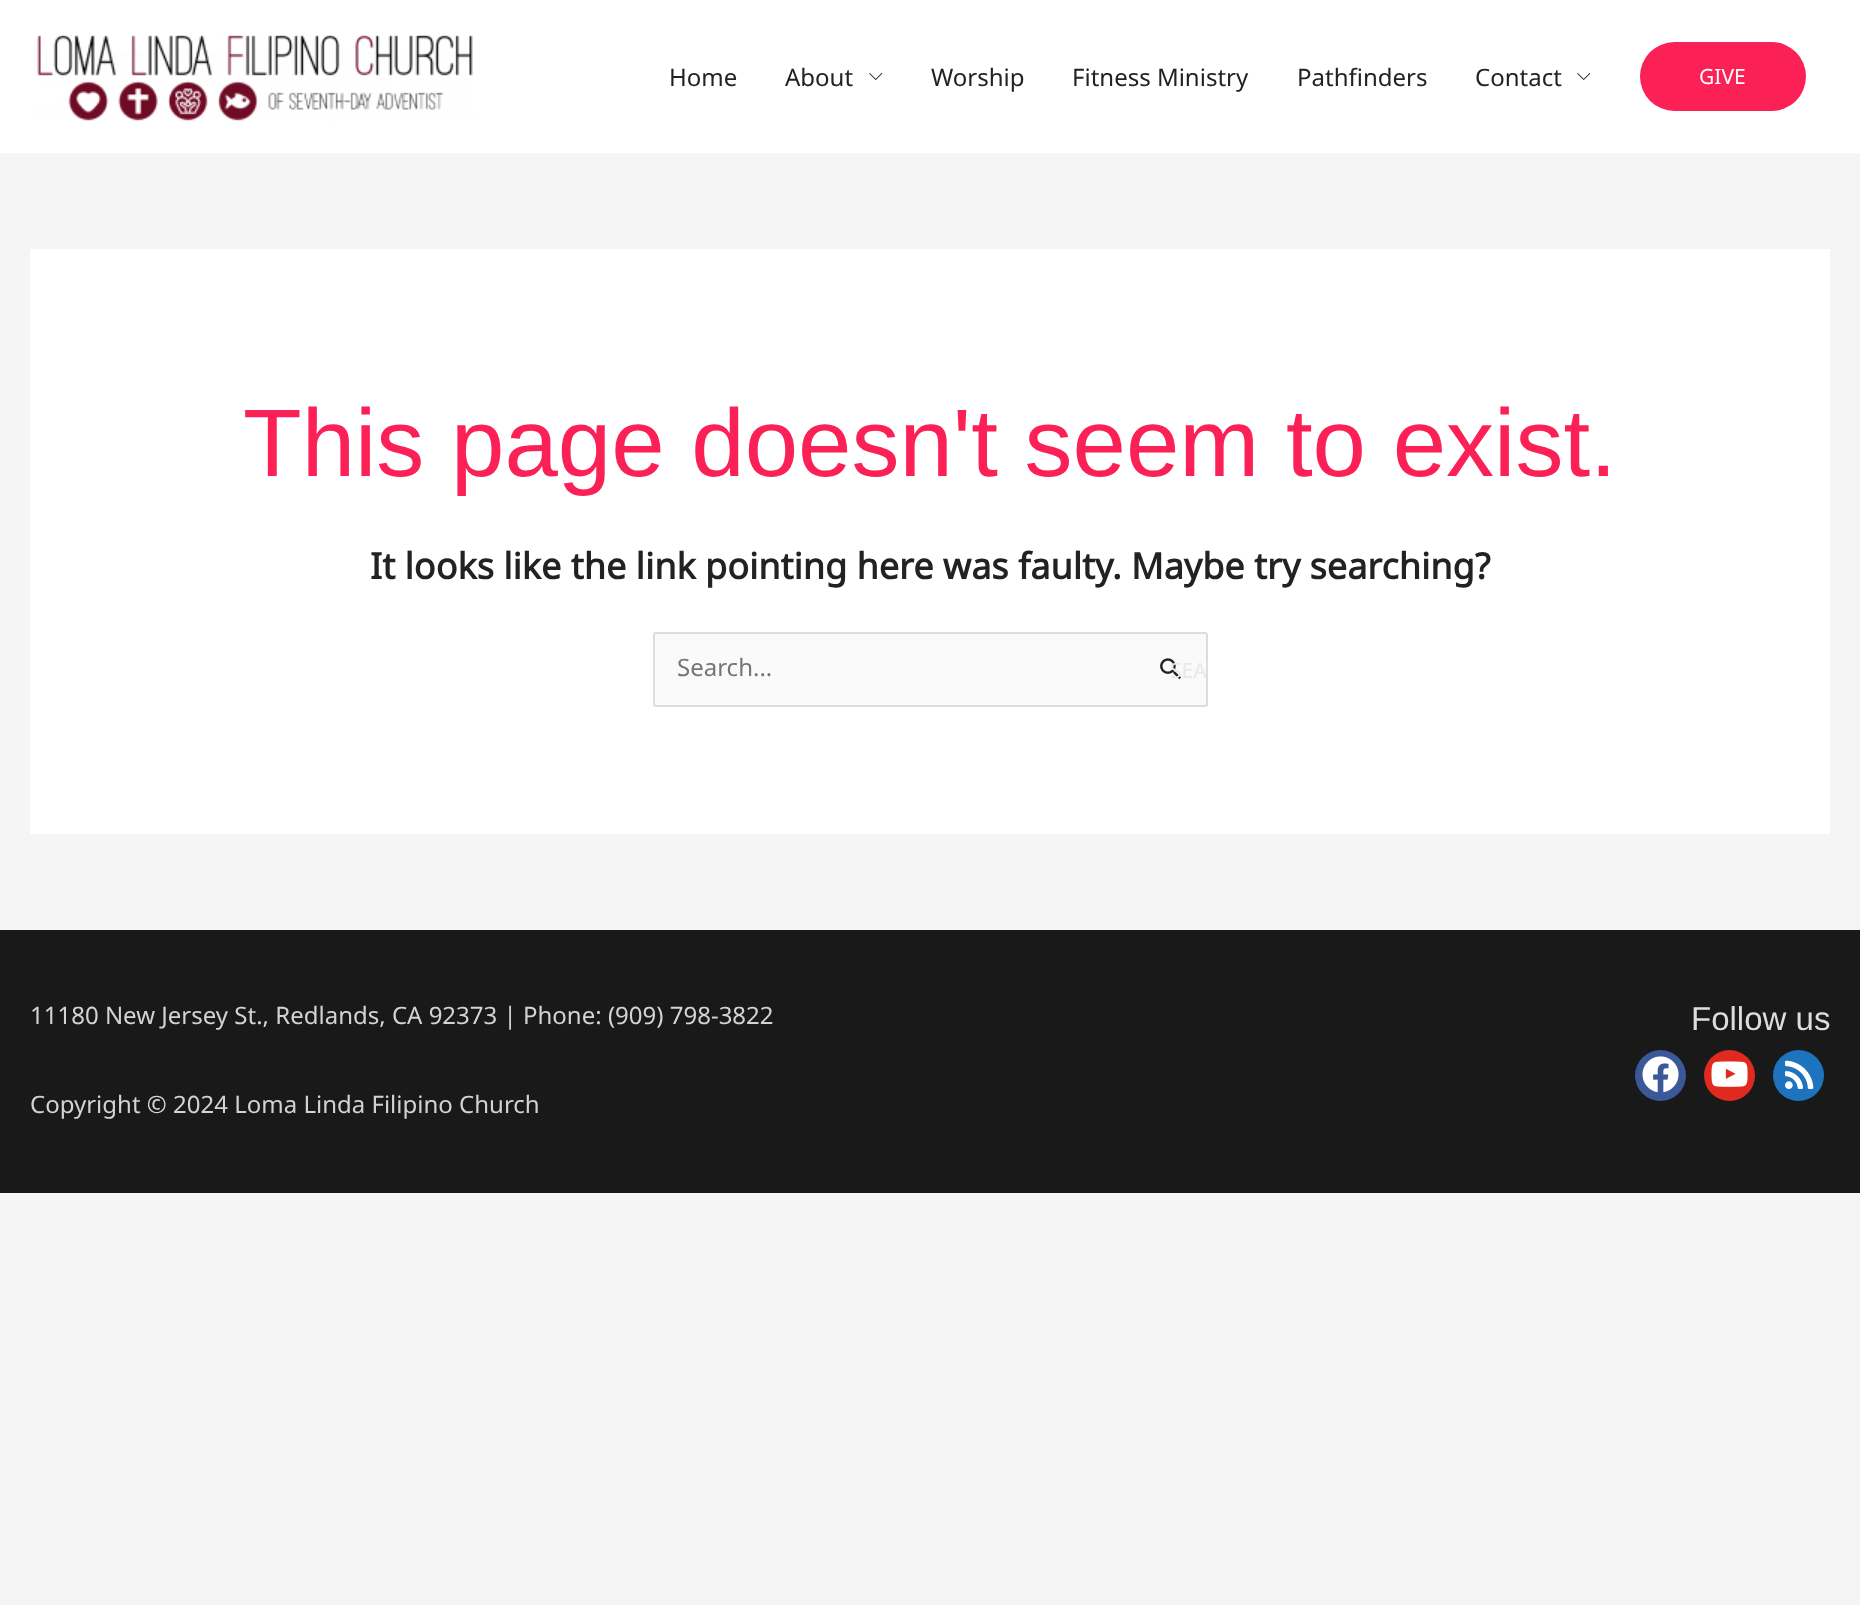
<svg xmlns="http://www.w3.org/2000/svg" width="1860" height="1605">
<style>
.a{font:24px Noto Sans;fill:#222}
.b{font:21px Noto Sans;fill:#fff}
.c{font:96px Liberation Sans;fill:#fb2056}
.d{font:bold 36px Noto Sans;fill:#222}
.e{font:24px Noto Sans;fill:#757575}
.f{font:21px Noto Sans;fill:#e8e8e8}
.g{font:24px Noto Sans;fill:#d3d3d3}
.h{font:33px Liberation Sans;fill:#ddd}
</style>
<rect width="100%" height="100%" fill="#f5f5f5"/>
<path fill="#fff" d="M0 0h1860v153H0z"/>
<image href="1.png" x="37" y="35" width="436" height="86"/>
<image href="2.png" x="869" y="73" width="14" height="7"/>
<image href="2.png" x="1577" y="73" width="14" height="7"/>
<rect fill="#fb2056" x="1640" y="42" width="166" height="69" rx="34.5"/>
<path fill="#fff" d="M30 249h1800v585H30z"/>
<rect fill="#fafafa" stroke="#ddd" stroke-width="2" x="654" y="633" width="553" height="73" rx="2"/>
<image href="3.png" x="1160" y="658" width="21" height="22"/>
<path fill="#191919" d="M0 930h1860v263H0z"/>
<circle fill="#3b5998" cx="1660.5" cy="1075.5" r="25.5"/>
<image href="4.png" x="1642" y="1056" width="37" height="37"/>
<circle fill="#e02a20" cx="1729.5" cy="1075.5" r="25.5"/>
<image href="5.png" x="1711" y="1061" width="37" height="26"/>
<circle fill="#1e73be" cx="1798.5" cy="1075.5" r="25.5"/>
<image href="6.png" x="1785" y="1060" width="29" height="29"/>
<text class="a" x="669" y="86">Home</text>
<text class="a" x="785" y="86">About</text>
<text class="a" x="931" y="86">Worship</text>
<text class="a" x="1072" y="86">Fitness Ministry</text>
<text class="a" x="1297" y="86">Pathfinders</text>
<text class="a" x="1475" y="86">Contact</text>
<text class="b" x="1699" y="84">GIVE</text>
<text class="c" x="243" y="476">This page doesn't seem to exist.</text>
<text class="d" x="370" y="579">It looks like the link pointing here was faulty. Maybe try searching?</text>
<text class="e" x="677" y="676">Search...</text>
<text class="f" x="1170" y="678">SEA</text>
<text class="g" x="30" y="1024">11180 New Jersey St., Redlands, CA 92373 | Phone: (909) 798-3822</text>
<text class="g" x="30" y="1113">Copyright © 2024 Loma Linda Filipino Church</text>
<text class="h" x="1691" y="1030">Follow us</text>
</svg>
